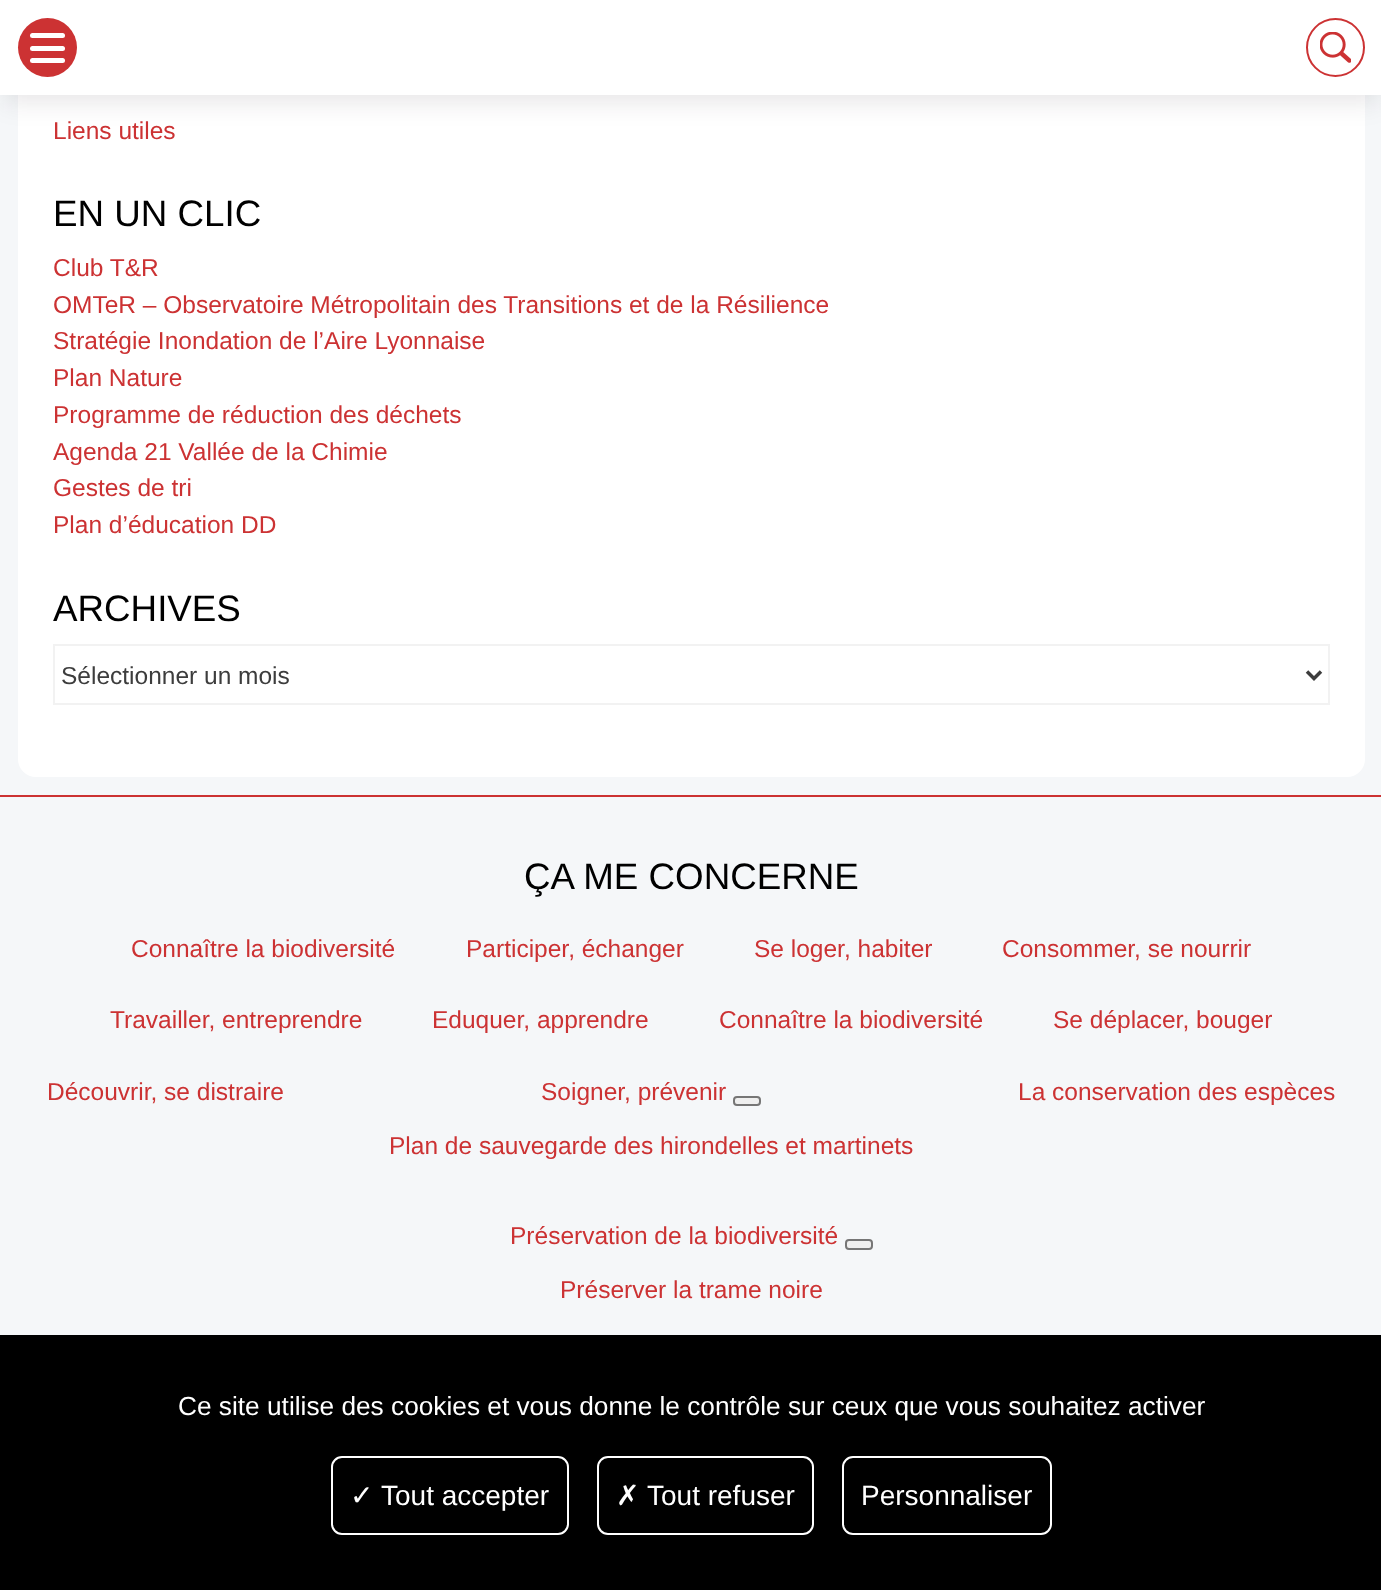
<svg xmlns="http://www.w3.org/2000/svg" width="1381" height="1590">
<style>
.a{font:24.5px Liberation Sans;fill:#cc3233}
.b{font:36.75px Liberation Sans;fill:#000}
.c{font:24.5px Liberation Sans;fill:#3d3d3d}
.d{font:26.25px Liberation Sans;fill:#fff}
.e{font:28px DejaVu Sans;fill:#fff}
.f{font:28px Liberation Sans;fill:#fff}
</style>
<rect width="100%" height="100%" fill="#f5f7f9"/>
<rect fill="#fff" x="18" y="-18" width="1347" height="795" rx="18"/>
<path fill="#1a171b1a" filter="blur(12px)" d="M4 16h1375v87H4z"/>
<path fill="#fff" d="M0 0h1381v95H0z"/>
<circle fill="#cc3233" cx="47.5" cy="47.5" r="29.5"/>
<rect fill="#fff" x="30" y="33" width="35" height="5" rx="2.5"/>
<rect fill="#fff" x="30" y="46" width="35" height="5" rx="2.5"/>
<rect fill="#fff" x="30" y="58" width="35" height="5" rx="2.5"/>
<circle fill="none" stroke="#cc3233" stroke-width="2" cx="1335.5" cy="47.5" r="28.5"/>
<image href="1.png" x="1320" y="32" width="31" height="31"/>
<path fill="none" stroke="#f2f2f2" stroke-width="2" d="M54 645h1275v59H54z"/>
<path fill="none" stroke="#3d3d3d" stroke-width="3.5" d="M1307 671.5l7 7l7-7"/>
<path fill="#cc3233" d="M0 795h1381v2H0z"/>
<rect fill="#efefef" stroke="#767676" stroke-width="2" x="734" y="1097" width="26" height="8" rx="3"/>
<rect fill="#efefef" stroke="#767676" stroke-width="2" x="846" y="1240" width="26" height="9" rx="3"/>
<path fill="#000" d="M0 1335h1381v255H0z"/>
<rect fill="none" stroke="#fff" stroke-width="2" x="332" y="1457" width="236" height="77" rx="10"/>
<rect fill="none" stroke="#fff" stroke-width="2" x="598" y="1457" width="215" height="77" rx="10"/>
<rect fill="none" stroke="#fff" stroke-width="2" x="843" y="1457" width="208" height="77" rx="10"/>
<text class="a" x="53" y="139">Liens utiles</text>
<text class="b" x="53" y="226">EN UN CLIC</text>
<text class="a" x="53" y="276">Club T&amp;R</text>
<text class="a" x="53" y="313">OMTeR – Observatoire Métropolitain des Transitions et de la Résilience</text>
<text class="a" x="53" y="349">Stratégie Inondation de l’Aire Lyonnaise</text>
<text class="a" x="53" y="386">Plan Nature</text>
<text class="a" x="53" y="423">Programme de réduction des déchets</text>
<text class="a" x="53" y="460">Agenda 21 Vallée de la Chimie</text>
<text class="a" x="53" y="496">Gestes de tri</text>
<text class="a" x="53" y="533">Plan d’éducation DD</text>
<text class="b" x="53" y="621">ARCHIVES</text>
<text class="c" x="61" y="684">Sélectionner un mois</text>
<text class="b" x="524" y="889">ÇA ME CONCERNE</text>
<text class="a" x="131" y="957">Connaître la biodiversité</text>
<text class="a" x="466" y="957">Participer, échanger</text>
<text class="a" x="754" y="957">Se loger, habiter</text>
<text class="a" x="1002" y="957">Consommer, se nourrir</text>
<text class="a" x="110" y="1028">Travailler, entreprendre</text>
<text class="a" x="432" y="1028">Eduquer, apprendre</text>
<text class="a" x="719" y="1028">Connaître la biodiversité</text>
<text class="a" x="1053" y="1028">Se déplacer, bouger</text>
<text class="a" x="47" y="1100">Découvrir, se distraire</text>
<text class="a" x="541" y="1100">Soigner, prévenir</text>
<text class="a" x="389" y="1154">Plan de sauvegarde des hirondelles et martinets</text>
<text class="a" x="1018" y="1100">La conservation des espèces</text>
<text class="a" x="510" y="1244">Préservation de la biodiversité</text>
<text class="a" x="560" y="1298">Préserver la trame noire</text>
<text class="d" x="178" y="1415">Ce site utilise des cookies et vous donne le contrôle sur ceux que vous souhaitez activer</text>
<text class="e" x="350" y="1505">✓</text>
<text class="f" x="381" y="1505">Tout accepter</text>
<text class="e" x="616" y="1505">✗</text>
<text class="f" x="647" y="1505">Tout refuser</text>
<text class="f" x="861" y="1505">Personnaliser</text>
</svg>
